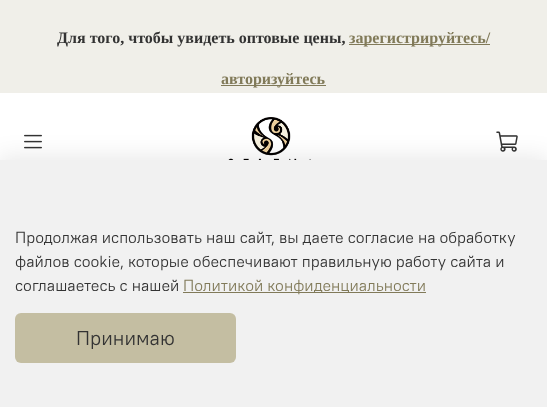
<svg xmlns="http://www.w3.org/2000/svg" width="547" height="407">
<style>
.a{font:bold 16px Liberation Serif;fill:#333}
.b{font:bold 16px Liberation Serif;fill:#817a59}
.c{font:16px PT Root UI;fill:#333}
.d{font:16px PT Root UI;fill:#817a59}
.e{font:20px PT Root UI;fill:#333}
</style>
<rect width="100%" height="100%" fill="#fff"/>
<path fill="#f0efe9" d="M0 0h547v93H0z"/>
<path fill="#817a59" d="M349 44h141v1H349z"/>
<path fill="#817a59" d="M221 85h105v1H221z"/>
<image href="1.png" x="24" y="134" width="18" height="15"/>
<image href="2.png" x="228" y="117" width="83" height="43"/>
<image href="3.png" x="496" y="131" width="22" height="21"/>
<path fill="#00000017" filter="blur(11.5px)" d="M-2 157h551v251H-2z"/>
<path fill="#f1f1f1" d="M0 160h547v247H0z"/>
<path fill="#817a59" d="M183 292h243v1H183z"/>
<rect fill="#c4bea2" x="15" y="313" width="221" height="50" rx="6"/>
<text class="a" x="57" y="43">Для того, чтобы увидеть оптовые цены,</text>
<text class="b" x="349" y="43">зарегистрируйтесь/</text>
<text class="b" x="221" y="84">авторизуйтесь</text>
<text class="c" x="15" y="243">Продолжая использовать наш сайт, вы даете согласие на обработку</text>
<text class="c" x="15" y="267">файлов cookie, которые обеспечивают правильную работу сайта и</text>
<text class="c" x="15" y="291">соглашаетесь с нашей</text>
<text class="d" x="183" y="291">Политикой конфиденциальности</text>
<text class="e" x="76" y="345">Принимаю</text>
</svg>
